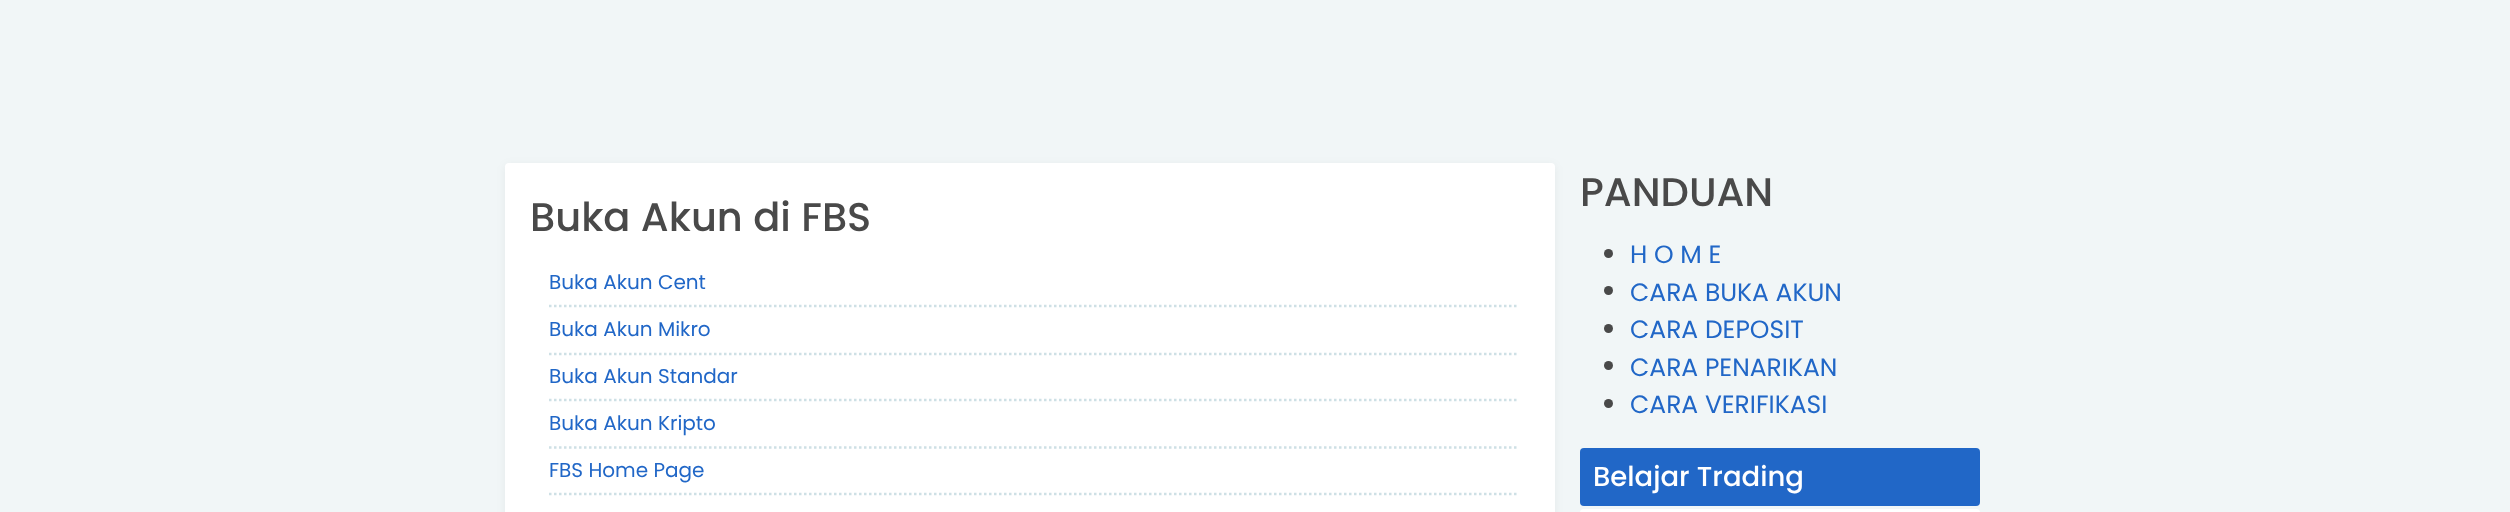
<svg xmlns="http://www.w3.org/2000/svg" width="2510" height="512">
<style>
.a{font:500 40px Poppins;fill:#494949}
.b{font:20px Poppins;fill:#2167c7}
.c{font:25px Poppins;fill:#2167c7}
.d{font:500 27.5px Poppins;fill:#fff}
</style>
<rect width="100%" height="100%" fill="#f1f6f7"/>
<rect fill="#0000000d" filter="blur(5px)" x="505" y="165" width="1050" height="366" rx="4"/>
<rect fill="#fff" x="505" y="163" width="1050" height="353" rx="4"/>
<path fill="none" stroke="#cee0e5" stroke-width="2.5" stroke-dasharray="2.5 2.5" d="M549 306h968.5"/>
<path fill="none" stroke="#cee0e5" stroke-width="2.5" stroke-dasharray="2.5 2.5" d="M549 354h968.5"/>
<path fill="none" stroke="#cee0e5" stroke-width="2.5" stroke-dasharray="2.5 2.5" d="M549 400h968.5"/>
<path fill="none" stroke="#cee0e5" stroke-width="2.5" stroke-dasharray="2.5 2.5" d="M549 447.5h968.5"/>
<path fill="none" stroke="#cee0e5" stroke-width="2.5" stroke-dasharray="2.5 2.5" d="M549 494h968.5"/>
<circle fill="#494949" cx="1608.5" cy="253.5" r="4.5"/>
<circle fill="#494949" cx="1608.5" cy="290.5" r="4.5"/>
<circle fill="#494949" cx="1608.5" cy="328.5" r="4.5"/>
<circle fill="#494949" cx="1608.5" cy="365.5" r="4.5"/>
<circle fill="#494949" cx="1608.5" cy="403.5" r="4.5"/>
<rect fill="#2167c7" x="1580" y="448" width="400" height="58" rx="4"/>
<rect fill="#fff" x="1580" y="509" width="400" height="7" rx="4"/>
<text class="a" x="530" y="231">Buka Akun di FBS</text>
<text class="b" x="549" y="289">Buka Akun Cent</text>
<text class="b" x="549" y="336">Buka Akun Mikro</text>
<text class="b" x="549" y="383">Buka Akun Standar</text>
<text class="b" x="549" y="430">Buka Akun Kripto</text>
<text class="b" x="549" y="477">FBS Home Page</text>
<text class="a" x="1580" y="206">PANDUAN</text>
<text class="c" x="1630" y="263">H O M E</text>
<text class="c" x="1630" y="301">CARA BUKA AKUN</text>
<text class="c" x="1630" y="338">CARA DEPOSIT</text>
<text class="c" x="1630" y="376">CARA PENARIKAN</text>
<text class="c" x="1630" y="413">CARA VERIFIKASI</text>
<text class="d" x="1593" y="486">Belajar Trading</text>
</svg>
